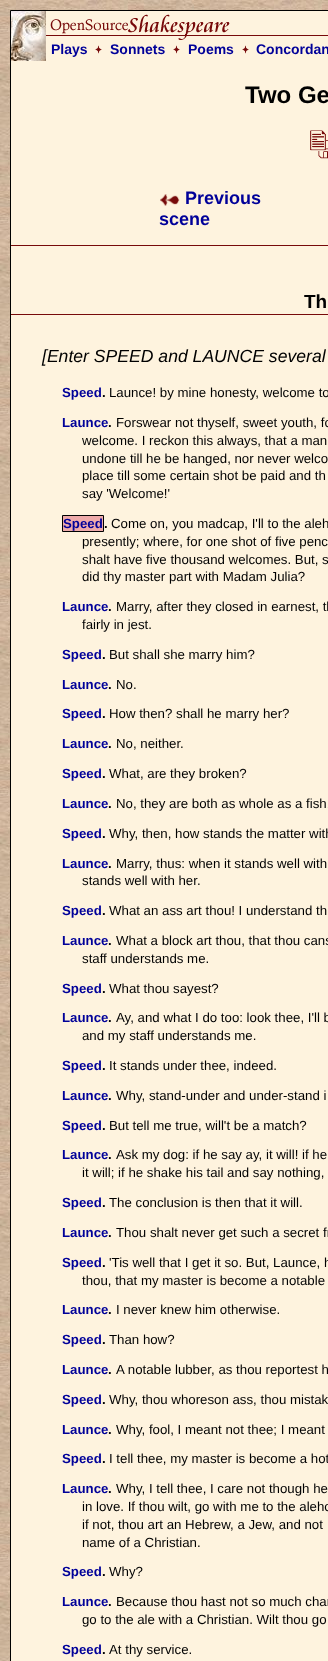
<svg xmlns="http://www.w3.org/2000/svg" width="328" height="1661">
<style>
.a{font:bold 14px Liberation Sans;fill:#009}
.b{font:bold 24px Liberation Sans;fill:#000}
.c{font:bold 18px Liberation Sans;fill:#009}
.d{font:bold 19px Liberation Sans;fill:#000}
.e{font:italic 17.6px Liberation Sans;fill:#000}
.f{font:bold 13.25px Liberation Sans;fill:#009}
.g{font:bold 13.25px Liberation Sans;fill:#000}
.h{font:13.25px Liberation Sans;fill:#000}
</style>
<rect width="100%" height="100%" fill="#fff"/>
<image href="1.png" x="0" y="0" width="328" height="1661"/>
<path fill="#fef3de" d="M11 61h317v1600H11z"/>
<path fill="none" stroke="#000" d="M10.5 10.5h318v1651H10.5z"/>
<image href="2.png" x="11" y="11" width="317" height="50"/>
<image href="3.png" x="95" y="45" width="7" height="9"/>
<image href="3.png" x="173" y="45" width="7" height="9"/>
<image href="3.png" x="242" y="45" width="7" height="9"/>
<image href="4.png" x="310" y="130" width="18" height="29"/>
<image href="5.png" x="160" y="194" width="20" height="12"/>
<path fill="#770a0a" d="M11 245h317v1H11z"/>
<path fill="#770a0a" d="M11 314h317v1H11z"/>
<path fill="#eaa" stroke="#000" d="M62.5 515.5h41v16H62.5z"/>
<text class="a" x="51" y="54">Plays</text>
<text class="a" x="110" y="54">Sonnets</text>
<text class="a" x="188" y="54">Poems</text>
<text class="a" x="256" y="54">Concordan</text>
<text class="b" x="245" y="103">Two Ge</text>
<text class="c" x="185" y="204">Previous</text>
<text class="c" x="159" y="225">scene</text>
<text class="d" x="304" y="308">Th</text>
<text class="e" x="42" y="362">[Enter SPEED and LAUNCE several</text>
<text class="f" x="62" y="397">Speed</text>
<text class="g" x="102" y="397">.</text>
<text class="h" x="109" y="397">Launce! by mine honesty, welcome to</text>
<text class="f" x="62" y="427">Launce</text>
<text class="g" x="108" y="427">.</text>
<text class="h" x="116" y="427">Forswear not thyself, sweet youth, fo</text>
<text class="h" x="82" y="445">welcome. I reckon this always, that a man</text>
<text class="h" x="82" y="463">undone till he be hanged, nor never welco</text>
<text class="h" x="82" y="480">place till some certain shot be paid and th</text>
<text class="h" x="82" y="498">say 'Welcome!'</text>
<text class="f" x="63" y="528">Speed</text>
<text class="g" x="104" y="528">.</text>
<text class="h" x="111" y="528">Come on, you madcap, I'll to the aleh</text>
<text class="h" x="82" y="546">presently; where, for one shot of five penc</text>
<text class="h" x="82" y="564">shalt have five thousand welcomes. But, s</text>
<text class="h" x="82" y="581">did thy master part with Madam Julia?</text>
<text class="f" x="62" y="611">Launce</text>
<text class="g" x="108" y="611">.</text>
<text class="h" x="116" y="611">Marry, after they closed in earnest, th</text>
<text class="h" x="82" y="629">fairly in jest.</text>
<text class="f" x="62" y="659">Speed</text>
<text class="g" x="102" y="659">.</text>
<text class="h" x="109" y="659">But shall she marry him?</text>
<text class="f" x="62" y="689">Launce</text>
<text class="g" x="108" y="689">.</text>
<text class="h" x="116" y="689">No.</text>
<text class="f" x="62" y="718">Speed</text>
<text class="g" x="102" y="718">.</text>
<text class="h" x="109" y="718">How then? shall he marry her?</text>
<text class="f" x="62" y="748">Launce</text>
<text class="g" x="108" y="748">.</text>
<text class="h" x="116" y="748">No, neither.</text>
<text class="f" x="62" y="778">Speed</text>
<text class="g" x="102" y="778">.</text>
<text class="h" x="109" y="778">What, are they broken?</text>
<text class="f" x="62" y="808">Launce</text>
<text class="g" x="108" y="808">.</text>
<text class="h" x="116" y="808">No, they are both as whole as a fish.</text>
<text class="f" x="62" y="838">Speed</text>
<text class="g" x="102" y="838">.</text>
<text class="h" x="109" y="838">Why, then, how stands the matter with</text>
<text class="f" x="62" y="868">Launce</text>
<text class="g" x="108" y="868">.</text>
<text class="h" x="116" y="868">Marry, thus: when it stands well with</text>
<text class="h" x="82" y="885">stands well with her.</text>
<text class="f" x="62" y="915">Speed</text>
<text class="g" x="102" y="915">.</text>
<text class="h" x="109" y="915">What an ass art thou! I understand th</text>
<text class="f" x="62" y="945">Launce</text>
<text class="g" x="108" y="945">.</text>
<text class="h" x="116" y="945">What a block art thou, that thou cans</text>
<text class="h" x="82" y="963">staff understands me.</text>
<text class="f" x="62" y="993">Speed</text>
<text class="g" x="102" y="993">.</text>
<text class="h" x="109" y="993">What thou sayest?</text>
<text class="f" x="62" y="1022">Launce</text>
<text class="g" x="108" y="1022">.</text>
<text class="h" x="116" y="1022">Ay, and what I do too: look thee, I'll b</text>
<text class="h" x="82" y="1040">and my staff understands me.</text>
<text class="f" x="62" y="1070">Speed</text>
<text class="g" x="102" y="1070">.</text>
<text class="h" x="109" y="1070">It stands under thee, indeed.</text>
<text class="f" x="62" y="1100">Launce</text>
<text class="g" x="108" y="1100">.</text>
<text class="h" x="116" y="1100">Why, stand-under and under-stand i</text>
<text class="f" x="62" y="1130">Speed</text>
<text class="g" x="102" y="1130">.</text>
<text class="h" x="109" y="1130">But tell me true, will't be a match?</text>
<text class="f" x="62" y="1159">Launce</text>
<text class="g" x="108" y="1159">.</text>
<text class="h" x="116" y="1159">Ask my dog: if he say ay, it will! if he</text>
<text class="h" x="82" y="1177">it will; if he shake his tail and say nothing,</text>
<text class="f" x="62" y="1207">Speed</text>
<text class="g" x="102" y="1207">.</text>
<text class="h" x="109" y="1207">The conclusion is then that it will.</text>
<text class="f" x="62" y="1237">Launce</text>
<text class="g" x="108" y="1237">.</text>
<text class="h" x="116" y="1237">Thou shalt never get such a secret fr</text>
<text class="f" x="62" y="1267">Speed</text>
<text class="g" x="102" y="1267">.</text>
<text class="h" x="109" y="1267">'Tis well that I get it so. But, Launce, h</text>
<text class="h" x="82" y="1285">thou, that my master is become a notable</text>
<text class="f" x="62" y="1314">Launce</text>
<text class="g" x="108" y="1314">.</text>
<text class="h" x="116" y="1314">I never knew him otherwise.</text>
<text class="f" x="62" y="1344">Speed</text>
<text class="g" x="102" y="1344">.</text>
<text class="h" x="109" y="1344">Than how?</text>
<text class="f" x="62" y="1374">Launce</text>
<text class="g" x="108" y="1374">.</text>
<text class="h" x="116" y="1374">A notable lubber, as thou reportest h</text>
<text class="f" x="62" y="1404">Speed</text>
<text class="g" x="102" y="1404">.</text>
<text class="h" x="109" y="1404">Why, thou whoreson ass, thou mistak</text>
<text class="f" x="62" y="1434">Launce</text>
<text class="g" x="108" y="1434">.</text>
<text class="h" x="116" y="1434">Why, fool, I meant not thee; I meant</text>
<text class="f" x="62" y="1463">Speed</text>
<text class="g" x="102" y="1463">.</text>
<text class="h" x="109" y="1463">I tell thee, my master is become a hot</text>
<text class="f" x="62" y="1493">Launce</text>
<text class="g" x="108" y="1493">.</text>
<text class="h" x="116" y="1493">Why, I tell thee, I care not though he</text>
<text class="h" x="82" y="1511">in love. If thou wilt, go with me to the aleho</text>
<text class="h" x="82" y="1529">if not, thou art an Hebrew, a Jew, and not</text>
<text class="h" x="82" y="1547">name of a Christian.</text>
<text class="f" x="62" y="1576">Speed</text>
<text class="g" x="102" y="1576">.</text>
<text class="h" x="109" y="1576">Why?</text>
<text class="f" x="62" y="1606">Launce</text>
<text class="g" x="108" y="1606">.</text>
<text class="h" x="116" y="1606">Because thou hast not so much char</text>
<text class="h" x="82" y="1624">go to the ale with a Christian. Wilt thou go</text>
<text class="f" x="62" y="1654">Speed</text>
<text class="g" x="102" y="1654">.</text>
<text class="h" x="109" y="1654">At thy service.</text>
</svg>
